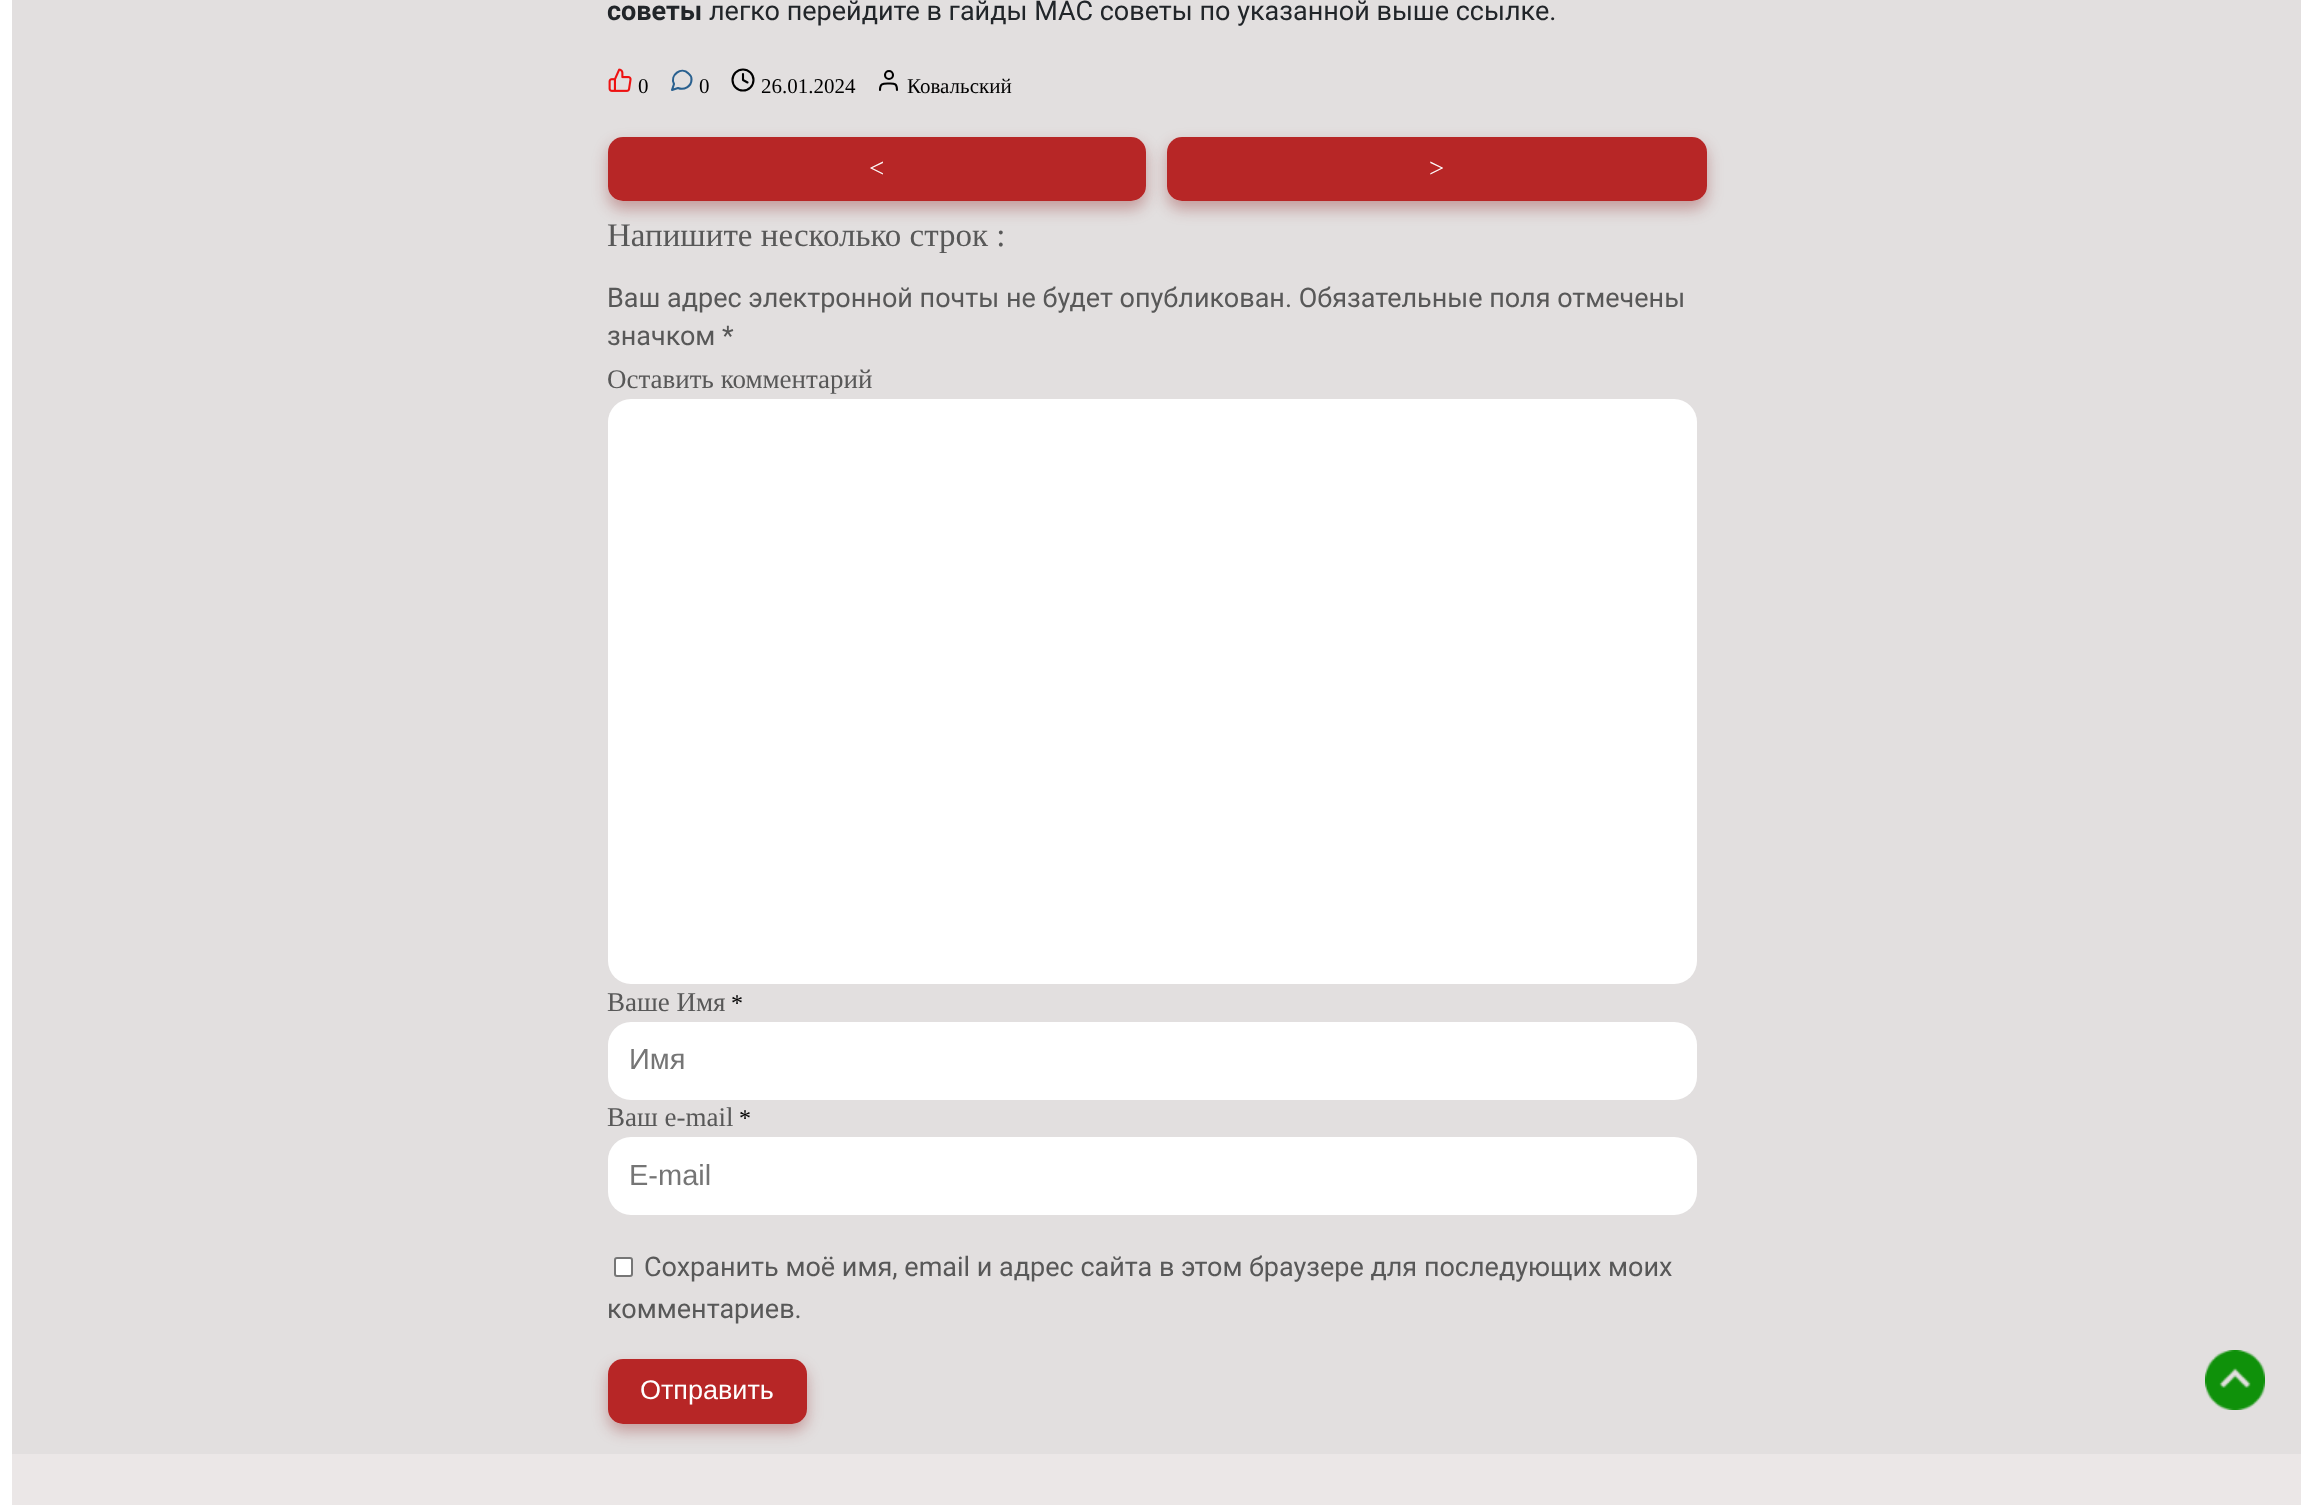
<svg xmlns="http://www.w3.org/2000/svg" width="2313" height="1505">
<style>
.a{font:bold 27px Roboto;fill:#212529}
.b{font:27px Roboto;fill:#212529}
.c{font:21px Liberation Serif;fill:#000}
.d{font:27px Liberation Serif;fill:#fff}
.e{font:33px Liberation Serif;fill:#585858}
.f{font:27px Roboto;fill:#585858}
.g{font:27px Liberation Serif;fill:#585858}
.h{font:24px Liberation Serif;fill:#000}
.i{font:29px Liberation Sans;fill:#757575}
.j{font:27px Liberation Sans;fill:#fff}
</style>
<defs>
<clipPath id="clip1"><path d="M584 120h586v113h-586zm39 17h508c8.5 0 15 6.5 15 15v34c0 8.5-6.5 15-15 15h-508c-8.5 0-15-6.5-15-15v-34c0-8.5 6.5-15 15-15z" clip-rule="evenodd"/></clipPath>
<clipPath id="clip2"><path d="M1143 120h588v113h-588zm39 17h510c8.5 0 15 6.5 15 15v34c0 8.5-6.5 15-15 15h-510c-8.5 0-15-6.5-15-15v-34c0-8.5 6.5-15 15-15z" clip-rule="evenodd"/></clipPath>
<clipPath id="clip3"><path d="M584 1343h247v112h-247zm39 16h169c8.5 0 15 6.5 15 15v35c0 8.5-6.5 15-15 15h-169c-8.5 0-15-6.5-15-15v-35c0-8.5 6.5-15 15-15z" clip-rule="evenodd"/></clipPath>
</defs>
<rect width="100%" height="100%" fill="#fff"/>
<path fill="#e2dfdf" d="M12 0h2289v1454H12z"/>
<image href="1.png" x="608" y="68" width="24" height="24"/>
<path fill="none" stroke="#29608f" stroke-width="2.1" stroke-linecap="round" stroke-linejoin="round" d="M691.5 79.5c0 7-7.5 11-13.5 8.5l-6 2l2-6c-4.5-9 7.5-18 14.5-10.5c2 1.5 3 4 3 6z"/>
<circle fill="none" stroke="#000" stroke-width="2.1" cx="743" cy="80" r="10.5"/>
<path fill="none" stroke="#000" stroke-width="2.1" stroke-linecap="round" stroke-linejoin="round" d="M743 74v6l4.5 2.5"/>
<path fill="none" stroke="#000" stroke-width="2.1" stroke-linecap="round" stroke-linejoin="round" d="M897 90c0-7-2.5-6.5-8-6.5c-6 0-9-.5-9 6.5"/>
<circle fill="none" stroke="#000" stroke-width="2.1" cx="889" cy="75" r="4"/>
<g clip-path="url(#clip1)">
<rect fill="#8b161657" filter="blur(7.5px)" x="608" y="144" width="538" height="65" rx="15"/>
</g>
<rect fill="#af0606d9" x="608" y="137" width="538" height="64" rx="15"/>
<g clip-path="url(#clip2)">
<rect fill="#8b161657" filter="blur(7.5px)" x="1167" y="144" width="540" height="65" rx="15"/>
</g>
<rect fill="#af0606d9" x="1167" y="137" width="540" height="64" rx="15"/>
<rect fill="#fff" x="608" y="399" width="1089" height="585" rx="23"/>
<rect fill="#fff" x="608" y="1022" width="1089" height="78" rx="23"/>
<rect fill="#fff" x="608" y="1137" width="1089" height="78" rx="23"/>
<rect fill="#fff" stroke="#767676" stroke-width="2" x="615" y="1258" width="17" height="18" rx="2"/>
<path fill="#ebe7e7" d="M12 1454h2289v51H12z"/>
<g clip-path="url(#clip3)">
<rect fill="#8b161657" filter="blur(7.5px)" x="608" y="1367" width="199" height="64" rx="15"/>
</g>
<rect fill="#af0606d9" x="608" y="1359" width="199" height="65" rx="15"/>
<image href="2.png" x="2205" y="1350" width="60" height="60"/>
<text class="a" x="607" y="20">советы</text>
<text class="b" x="709" y="20">легко перейдите в гайды MAC советы по указанной выше ссылке.</text>
<text class="c" x="638" y="93">0</text>
<text class="c" x="699" y="93">0</text>
<text class="c" x="761" y="93">26.01.2024</text>
<text class="c" x="907" y="93">Ковальский</text>
<text class="d" x="869" y="177">&lt;</text>
<text class="d" x="1429" y="177">&gt;</text>
<text class="e" x="607" y="246">Напишите несколько строк :</text>
<text class="f" x="607" y="307">Ваш адрес электронной почты не будет опубликован. Обязательные поля отмечены</text>
<text class="f" x="607" y="345">значком *</text>
<text class="g" x="607" y="388">Оставить комментарий</text>
<text class="g" x="607" y="1011">Ваше Имя</text>
<text class="h" x="731" y="1011">*</text>
<text class="i" x="629" y="1069">Имя</text>
<text class="g" x="607" y="1126">Ваш e-mail</text>
<text class="h" x="739" y="1126">*</text>
<text class="i" x="629" y="1185">E-mail</text>
<text class="f" x="644" y="1276">Сохранить моё имя, email и адрес сайта в этом браузере для последующих моих</text>
<text class="f" x="607" y="1318">комментариев.</text>
<text class="j" x="640" y="1399">Отправить</text>
</svg>
